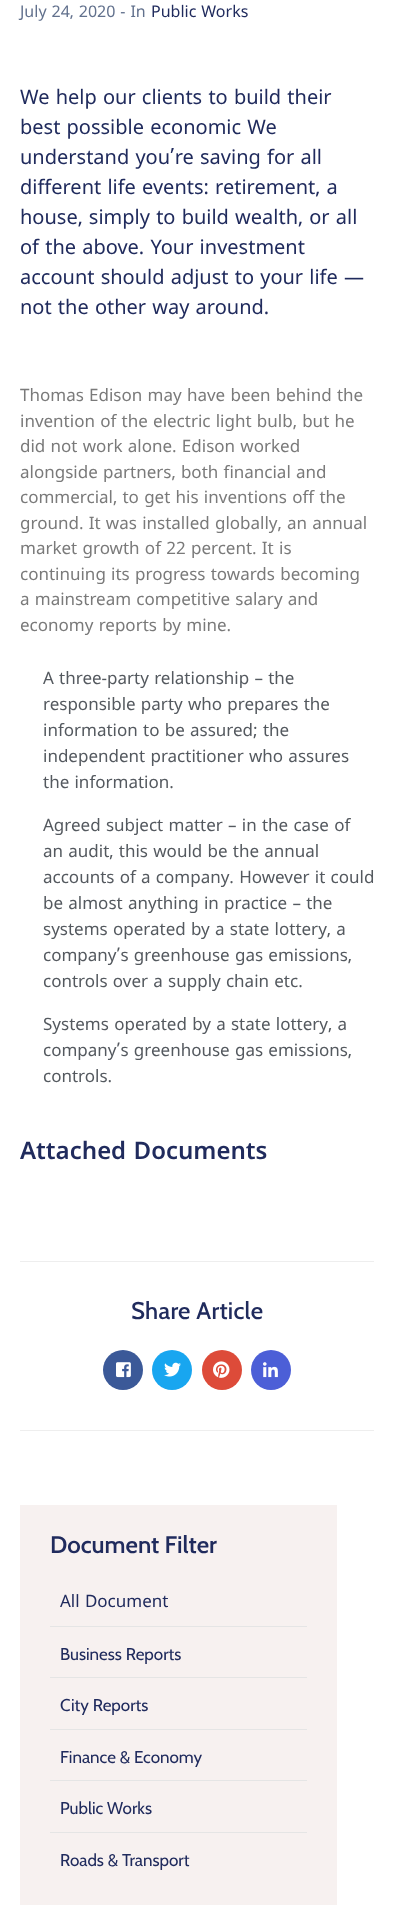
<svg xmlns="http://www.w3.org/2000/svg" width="394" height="1905">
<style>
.a{font:16px Noto Sans Malayalam;fill:#62718d}
.b{font:16px Noto Sans Malayalam;fill:#202b5d}
.c{font:20px Noto Sans Malayalam;fill:#202b5d}
.d{font:17px Noto Sans Malayalam;fill:#7a7a7a}
.e{font:17px Noto Sans Malayalam;fill:#54595f}
.f{font:600 24px Noto Sans Malayalam;fill:#202b5d}
.g{font:500 24px Cabin;letter-spacing:0.25px;fill:#202b5d}
.h{font:600 24px Cabin;fill:#202b5d}
.i{font:17px Noto Sans Malayalam;fill:#202b5d}
.j{font:17px Cabin;fill:#202b5d}
</style>
<rect width="100%" height="100%" fill="#fff"/>
<path fill="#eee" d="M20 1261h354v1H20z"/>
<path fill="#eee" d="M20 1430h354v1H20z"/>
<circle fill="#3b5998" cx="123" cy="1370" r="20"/>
<image href="1.png" x="116" y="1362" width="15" height="16"/>
<circle fill="#18a6f0" cx="172" cy="1370" r="20"/>
<image href="2.png" x="164" y="1362" width="17" height="15"/>
<circle fill="#dd4b39" cx="222" cy="1370" r="20"/>
<image href="3.png" x="213" y="1361" width="17" height="17"/>
<circle fill="#4c5fd7" cx="271" cy="1370" r="20"/>
<image href="4.png" x="263" y="1362" width="15" height="16"/>
<path fill="#f7f1f0" d="M20 1505h317v400H20z"/>
<path fill="#e5e5e5" d="M50 1626h257v1H50z"/>
<path fill="#e5e5e5" d="M50 1677h257v1H50z"/>
<path fill="#e5e5e5" d="M50 1729h257v1H50z"/>
<path fill="#e5e5e5" d="M50 1780h257v1H50z"/>
<path fill="#e5e5e5" d="M50 1832h257v1H50z"/>
<text class="a" x="20" y="17">July 24, 2020 - In</text>
<text class="b" x="151" y="17">Public Works</text>
<text class="c" x="20" y="104">We help our clients to build their</text>
<text class="c" x="20" y="134">best possible economic We</text>
<text class="c" x="20" y="164">understand you’re saving for all</text>
<text class="c" x="20" y="194">different life events: retirement, a</text>
<text class="c" x="20" y="224">house, simply to build wealth, or all</text>
<text class="c" x="20" y="254">of the above. Your investment</text>
<text class="c" x="20" y="284">account should adjust to your life —</text>
<text class="c" x="20" y="314">not the other way around.</text>
<text class="d" x="20" y="401">Thomas Edison may have been behind the</text>
<text class="d" x="20" y="427">invention of the electric light bulb, but he</text>
<text class="d" x="20" y="452">did not work alone. Edison worked</text>
<text class="d" x="20" y="478">alongside partners, both financial and</text>
<text class="d" x="20" y="503">commercial, to get his inventions off the</text>
<text class="d" x="20" y="529">ground. It was installed globally, an annual</text>
<text class="d" x="20" y="554">market growth of 22 percent. It is</text>
<text class="d" x="20" y="580">continuing its progress towards becoming</text>
<text class="d" x="20" y="605">a mainstream competitive salary and</text>
<text class="d" x="20" y="631">economy reports by mine.</text>
<text class="e" x="43" y="684">A three-party relationship – the</text>
<text class="e" x="43" y="710">responsible party who prepares the</text>
<text class="e" x="43" y="736">information to be assured; the</text>
<text class="e" x="43" y="762">independent practitioner who assures</text>
<text class="e" x="43" y="788">the information.</text>
<text class="e" x="43" y="831">Agreed subject matter – in the case of</text>
<text class="e" x="43" y="857">an audit, this would be the annual</text>
<text class="e" x="43" y="883">accounts of a company. However it could</text>
<text class="e" x="43" y="909">be almost anything in practice – the</text>
<text class="e" x="43" y="935">systems operated by a state lottery, a</text>
<text class="e" x="43" y="961">company’s greenhouse gas emissions,</text>
<text class="e" x="43" y="987">controls over a supply chain etc.</text>
<text class="e" x="43" y="1030">Systems operated by a state lottery, a</text>
<text class="e" x="43" y="1056">company’s greenhouse gas emissions,</text>
<text class="e" x="43" y="1082">controls.</text>
<text class="f" x="20" y="1159">Attached Documents</text>
<text class="g" x="131" y="1319">Share Article</text>
<text class="h" x="50" y="1553">Document Filter</text>
<text class="i" x="60" y="1607">All Document</text>
<text class="j" x="60" y="1660">Business Reports</text>
<text class="j" x="60" y="1711">City Reports</text>
<text class="j" x="60" y="1763">Finance &amp; Economy</text>
<text class="j" x="60" y="1814">Public Works</text>
<text class="j" x="60" y="1866">Roads &amp; Transport</text>
</svg>
